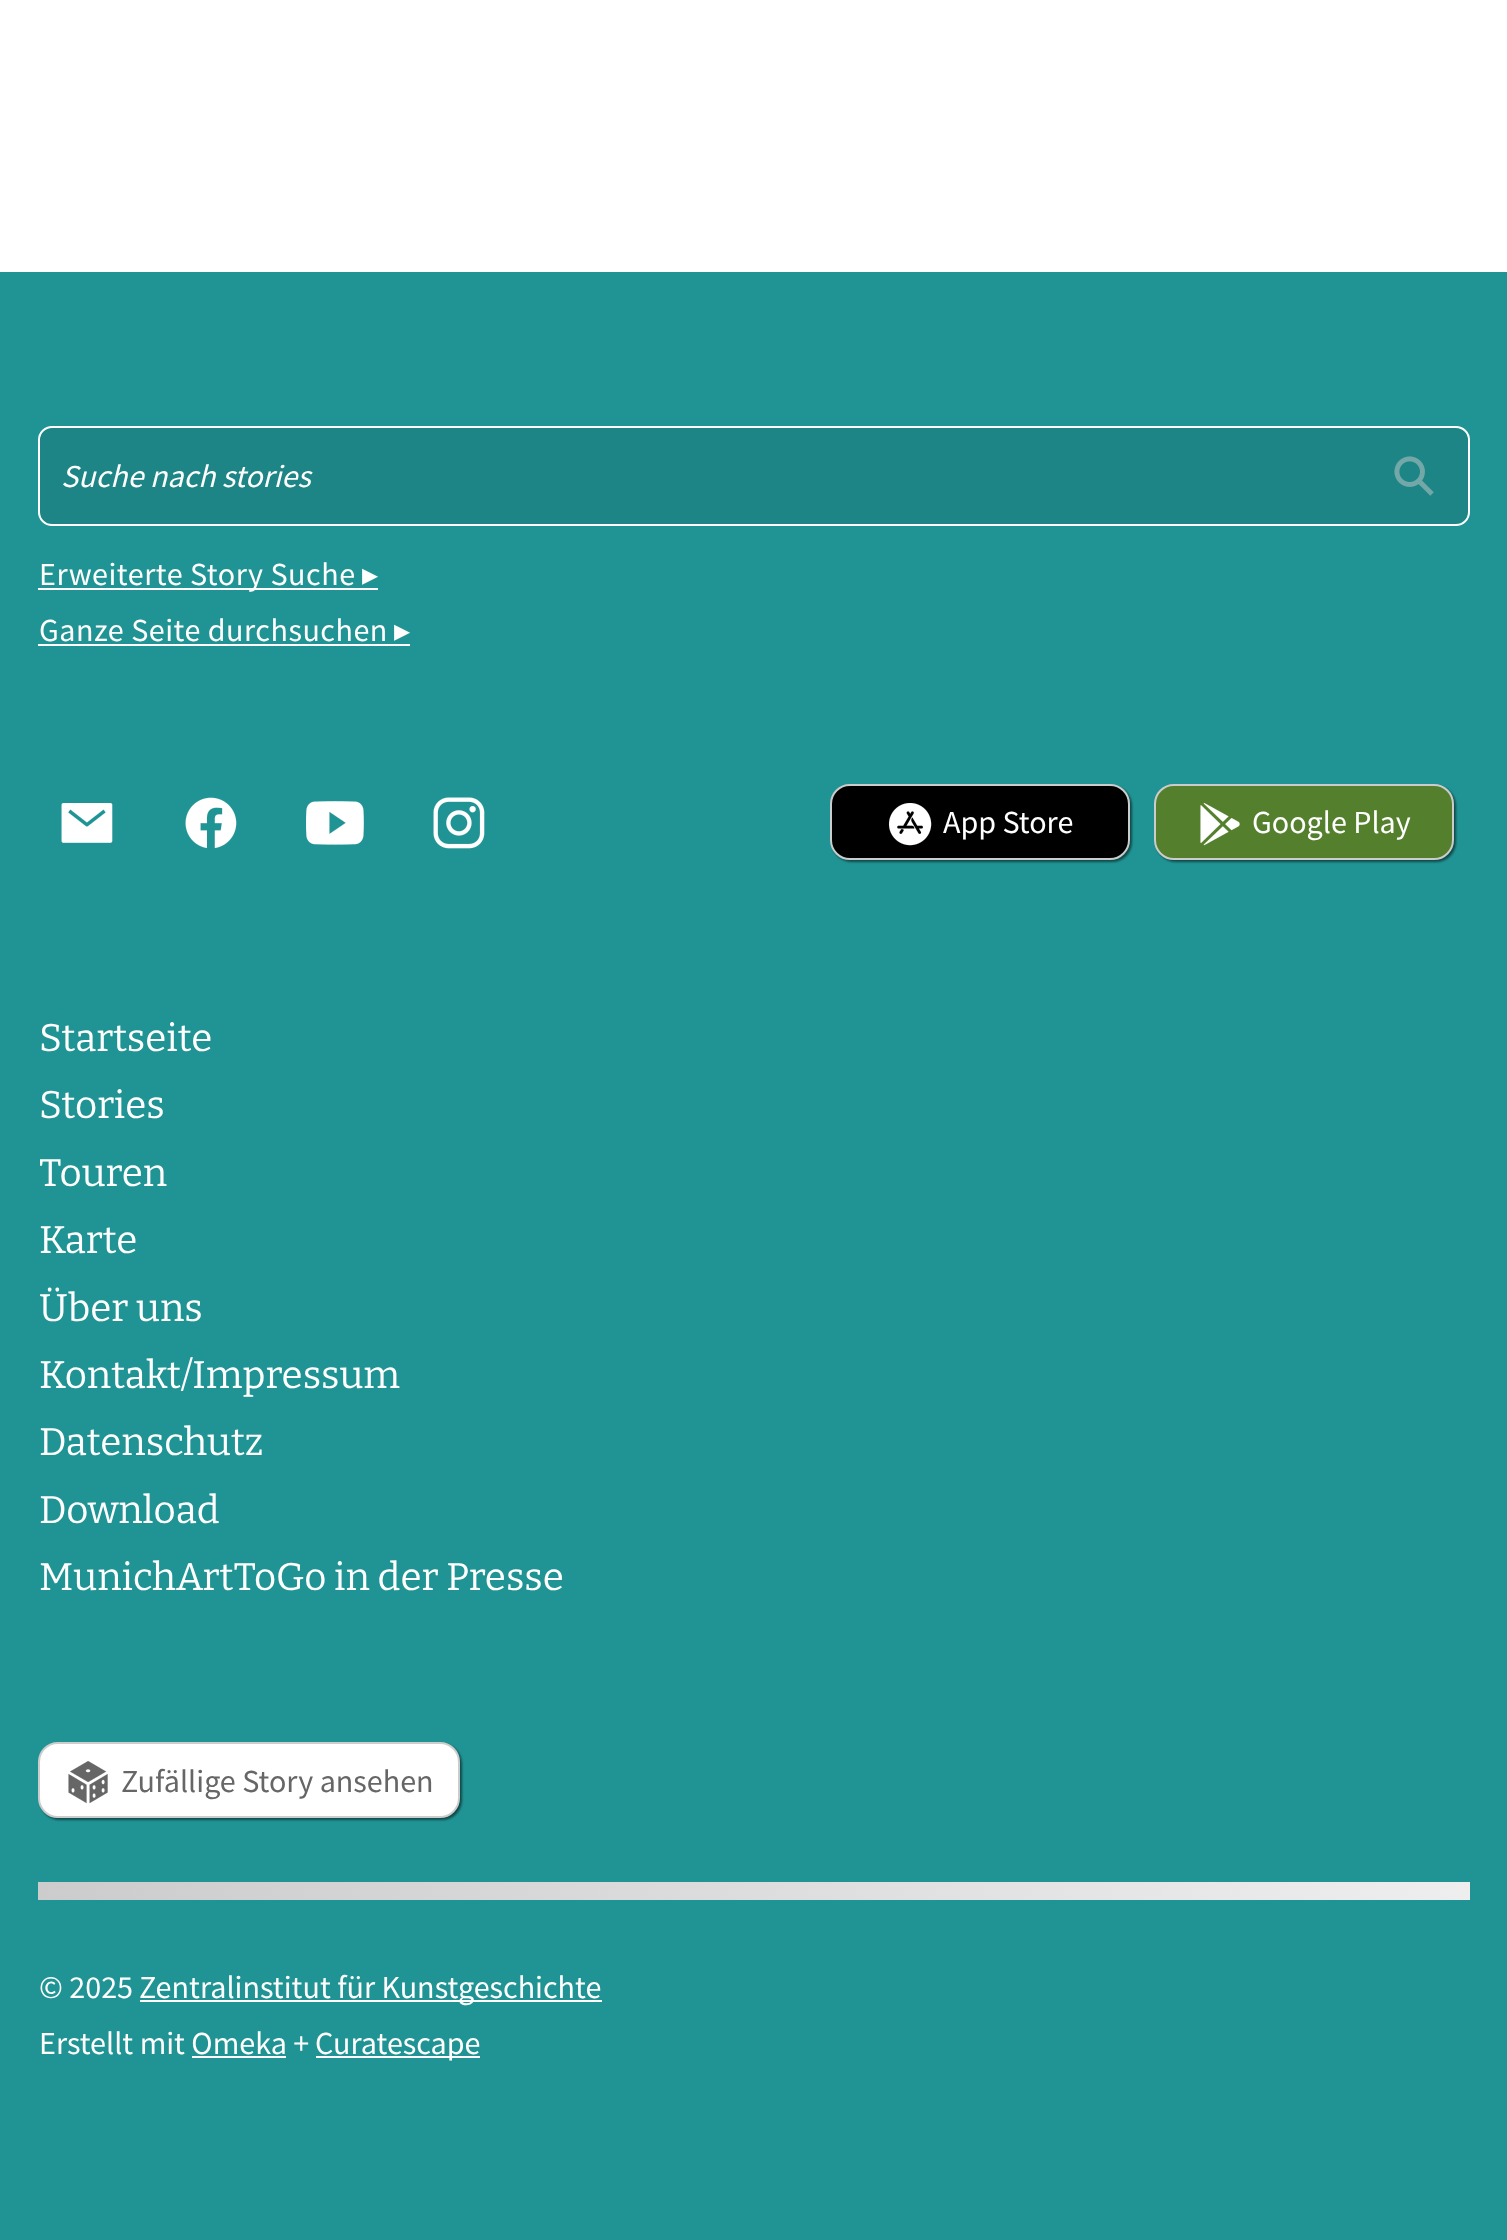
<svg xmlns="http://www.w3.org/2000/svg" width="1507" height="2240">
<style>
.a{font:italic 32px Source Sans Pro;fill:#fff}
.b{font:32.1px Source Sans Pro;letter-spacing:0.5px;fill:#fff}
.c{font:32.1px DejaVu Sans;letter-spacing:0.5px;fill:#fff}
.d{font:32.1px Source Sans Pro;fill:#fff}
.e{font:100 38.5px Bitter;fill:#fff}
.f{font:32.1px Source Sans Pro;fill:#666}
</style>
<defs>
<linearGradient id="g1" gradientUnits="userSpaceOnUse" x1="38" y1="1891" x2="1470" y2="1891"><stop offset="0" stop-color="#ccc"/><stop offset="1" stop-color="#eee"/></linearGradient>
</defs>
<rect width="100%" height="100%" fill="#fff"/>
<path fill="#209494" d="M0 272h1507v1968H0z"/>
<rect fill="#1d8585" stroke="#fff" stroke-width="2" x="39" y="427" width="1430" height="98" rx="13"/>
<image href="1.png" x="1394" y="456" width="40" height="40"/>
<path fill="#fff" d="M38 588h340v2H38z"/>
<path fill="#fff" d="M38 644h372v2H38z"/>
<image href="2.png" x="61" y="803" width="52" height="40"/>
<image href="3.png" x="185" y="797" width="52" height="52"/>
<image href="4.png" x="306" y="801" width="58" height="44"/>
<image href="5.png" x="433" y="797" width="52" height="52"/>
<rect fill="#00000080" filter="blur(1px)" x="832" y="786" width="300" height="76" rx="20"/>
<rect fill="#000" stroke="#ccc" stroke-width="2" x="831" y="785" width="298" height="74" rx="19"/>
<image href="6.png" x="888" y="803" width="44" height="43"/>
<rect fill="#00000080" filter="blur(1px)" x="1156" y="786" width="300" height="76" rx="20"/>
<rect fill="#54802d" stroke="#ccc" stroke-width="2" x="1155" y="785" width="298" height="74" rx="19"/>
<image href="7.png" x="1200" y="803" width="40" height="43"/>
<rect fill="#00000080" filter="blur(1px)" x="40" y="1744" width="422" height="76" rx="20"/>
<rect fill="#fff" stroke="#ccc" stroke-width="2" x="39" y="1743" width="420" height="74" rx="19"/>
<image href="8.png" x="68" y="1761" width="40" height="43"/>
<path fill="url(#g1)" d="M38 1882h1432v18H38z"/>
<path fill="#fff" d="M140 2000h462v2H140z"/>
<path fill="#fff" d="M316 2056h164v2H316z"/>
<path fill="#fff" d="M192 2056h94v2H192z"/>
<text class="a" x="61" y="487">Suche nach stories</text>
<text class="b" x="39" y="585">Erweiterte Story Suche</text>
<text class="c" x="362" y="585">▸</text>
<text class="b" x="39" y="641">Ganze Seite durchsuchen</text>
<text class="c" x="394" y="641">▸</text>
<text class="d" x="943" y="833">App Store</text>
<text class="d" x="1252" y="833">Google Play</text>
<text class="e" x="39" y="1051">Startseite</text>
<text class="e" x="39" y="1118">Stories</text>
<text class="e" x="39" y="1186">Touren</text>
<text class="e" x="39" y="1253">Karte</text>
<text class="e" x="39" y="1321">Über uns</text>
<text class="e" x="39" y="1388">Kontakt/Impressum</text>
<text class="e" x="39" y="1455">Datenschutz</text>
<text class="e" x="39" y="1523">Download</text>
<text class="e" x="39" y="1590">MunichArtToGo in der Presse</text>
<text class="f" x="121" y="1792">Zufällige Story ansehen</text>
<text class="d" x="39" y="1998">© 2025</text>
<text class="d" x="139" y="1998">Zentralinstitut für Kunstgeschichte</text>
<text class="d" x="39" y="2054">Erstellt mit Omeka +</text>
<text class="d" x="315" y="2054">Curatescape</text>
</svg>
